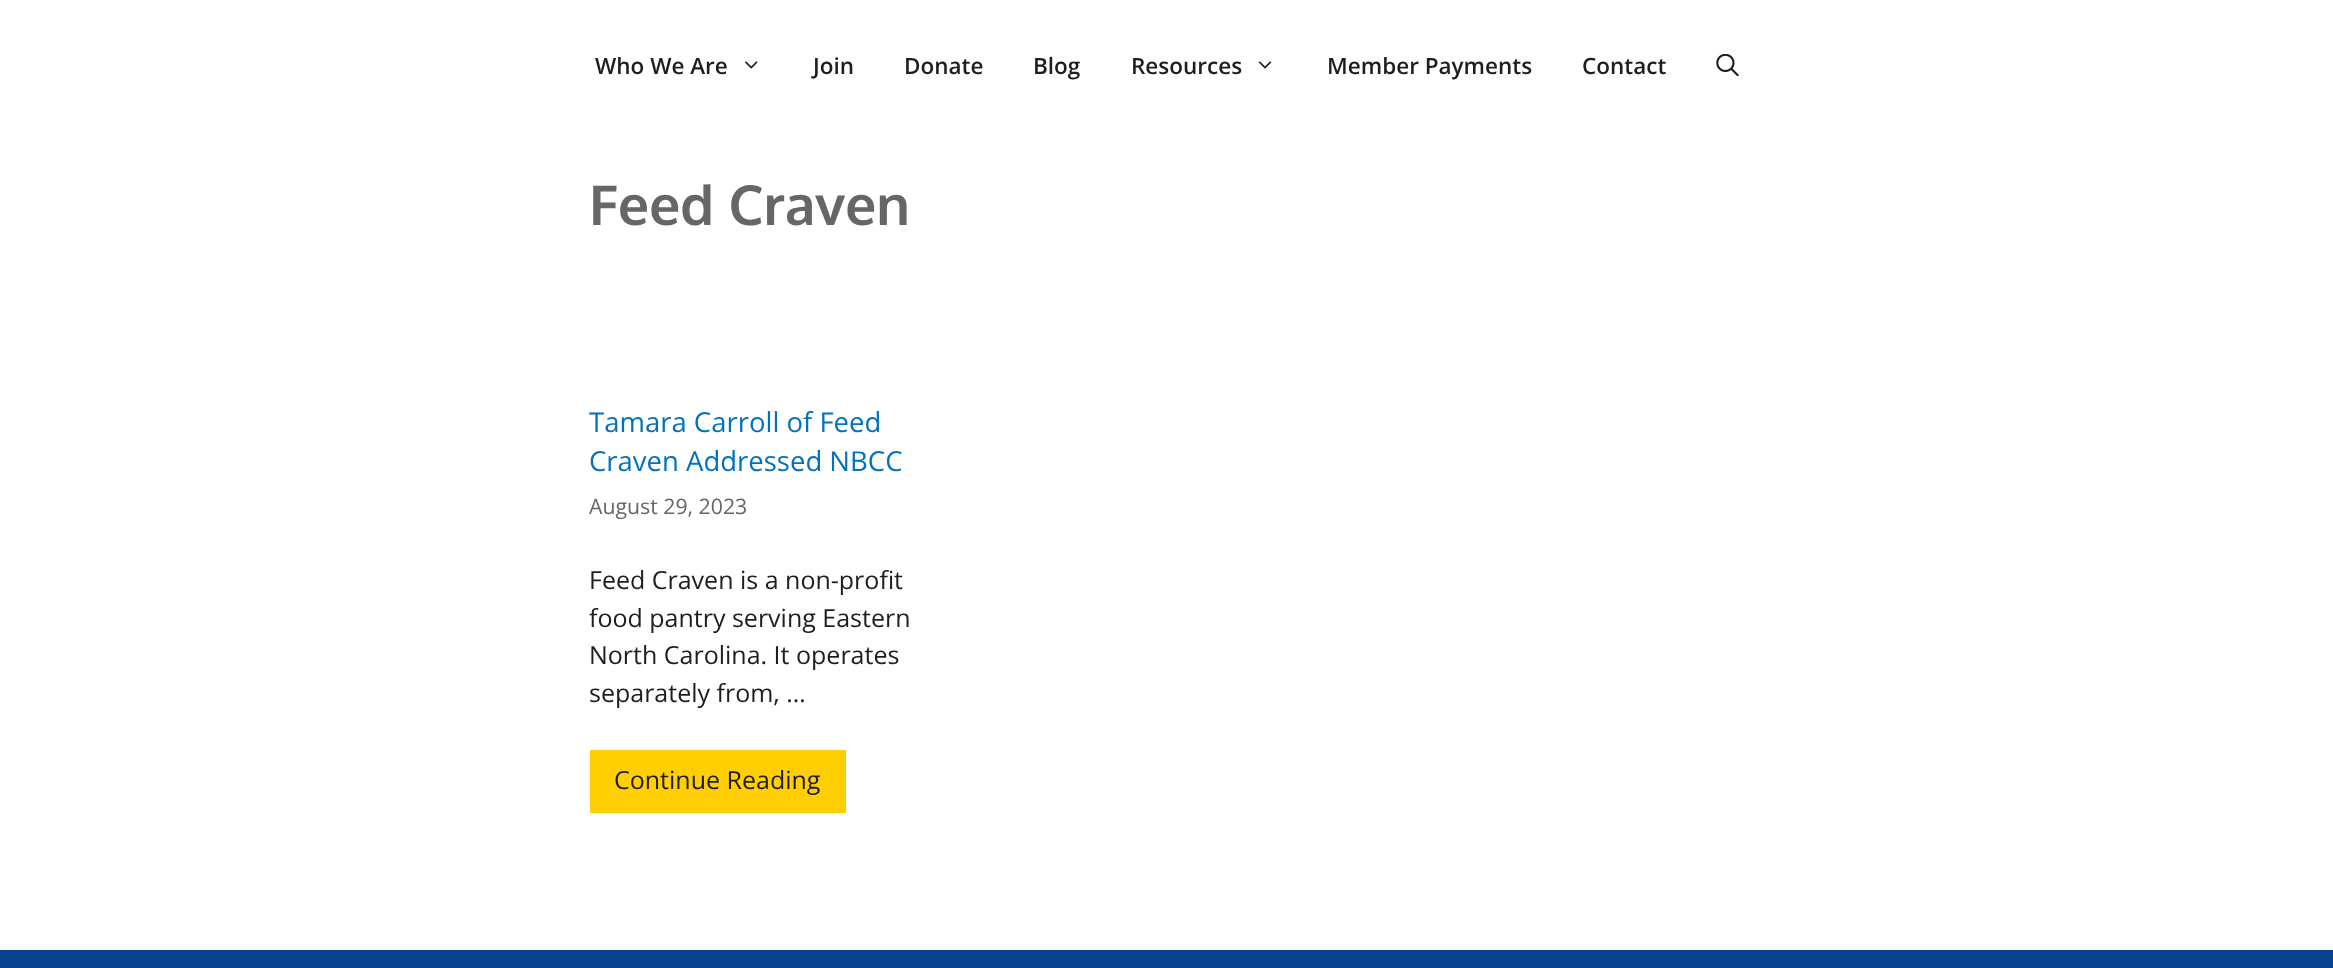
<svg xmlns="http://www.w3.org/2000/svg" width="2333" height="968">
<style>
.a{font:600 22.5px Open Sans;fill:#1e1e1e}
.b{font:bold 55px Oxygen;fill:#666}
.c{font:27.5px Open Sans;fill:#0071bc}
.d{font:21.25px Open Sans;fill:#666}
.e{font:25px Open Sans;fill:#1e1e1e}
</style>
<rect width="100%" height="100%" fill="#fff"/>
<image href="1.png" x="745" y="61" width="13" height="8"/>
<image href="2.png" x="1258" y="61" width="14" height="8"/>
<image href="3.png" x="1716" y="54" width="23" height="22"/>
<path fill="#ffce03" d="M590 750h256v63H590z"/>
<path fill="#09438f" d="M0 950h2333v18H0z"/>
<text class="a" x="595" y="74">Who We Are</text>
<text class="a" x="813" y="74">Join</text>
<text class="a" x="904" y="74">Donate</text>
<text class="a" x="1033" y="74">Blog</text>
<text class="a" x="1131" y="74">Resources</text>
<text class="a" x="1327" y="74">Member Payments</text>
<text class="a" x="1582" y="74">Contact</text>
<text class="b" x="589" y="225">Feed Craven</text>
<text class="c" x="589" y="432">Tamara Carroll of Feed</text>
<text class="c" x="589" y="471">Craven Addressed NBCC</text>
<text class="d" x="589" y="514">August 29, 2023</text>
<text class="e" x="589" y="589">Feed Craven is a non-profit</text>
<text class="e" x="589" y="627">food pantry serving Eastern</text>
<text class="e" x="589" y="664">North Carolina. It operates</text>
<text class="e" x="589" y="702">separately from, …</text>
<text class="e" x="614" y="789">Continue Reading</text>
</svg>
